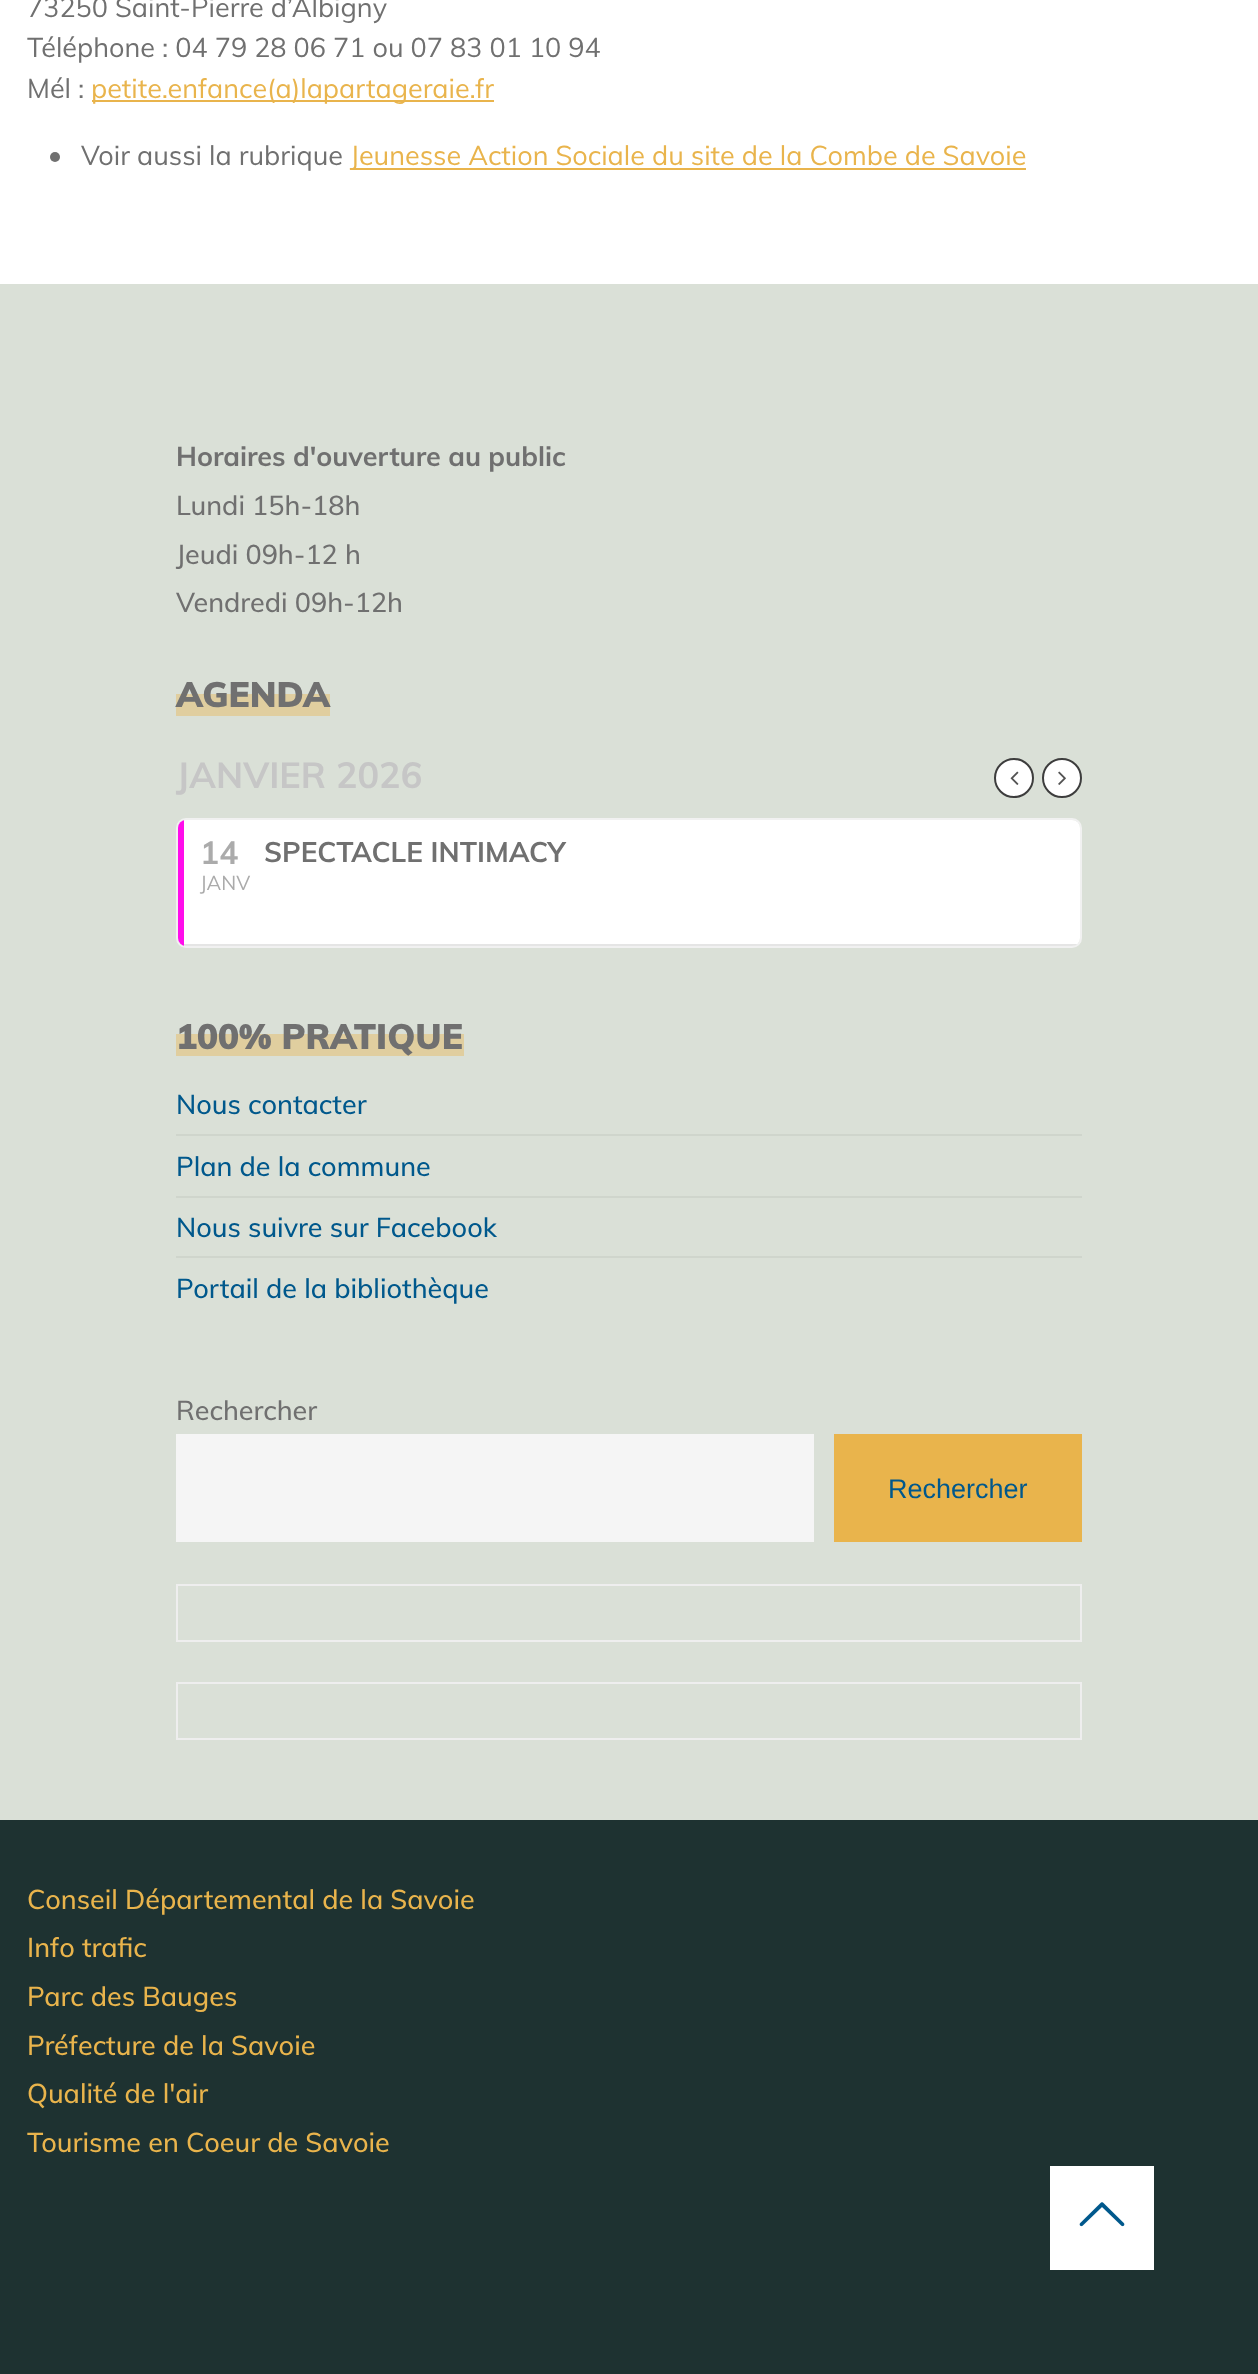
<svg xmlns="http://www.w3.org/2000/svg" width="1258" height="2374">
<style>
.a{font:27px Muli;fill:#707070}
.b{font:27px Muli;fill:#e9b44c}
.c{font:bold 27px Muli;fill:#707070}
.d{font:500 27px Muli;fill:#707070}
.e{font:900 35px Muli;fill:#707070}
.f{font:bold 36px Muli;fill:#c6c6c6}
.g{font:bold 32px Muli;fill:#ababab}
.h{font:20px Muli;fill:#ababab}
.i{font:bold 28px Muli;fill:#707070}
.j{font:500 27px Muli;fill:#00588c}
.k{font:27px Liberation Sans;fill:#00588c}
.l{font:500 27px Muli;fill:#e9b44c}
</style>
<defs>
<clipPath id="clip1"><rect x="178" y="820" width="902" height="126" rx="8"/></clipPath>
</defs>
<rect width="100%" height="100%" fill="#dae0d7"/>
<path fill="#fff" d="M0 0h1258v284H0z"/>
<path fill="#e9b44c" d="M92 100h402v2H92z"/>
<circle fill="#707070" cx="55" cy="157" r="5"/>
<path fill="#e9b44c" d="M350 168h676v2H350z"/>
<path fill="#e0ce9f" d="M176 694h154v22H176z"/>
<circle fill="#fff" stroke="#3d3d3d" stroke-width="2" cx="1014" cy="778" r="19"/>
<image href="1.png" x="1010" y="771" width="9" height="14"/>
<circle fill="#fff" stroke="#3d3d3d" stroke-width="2" cx="1062" cy="778" r="19"/>
<image href="2.png" x="1058" y="771" width="8" height="14"/>
<rect fill="none" stroke="#f1f1f1" stroke-width="2" x="177" y="819" width="904" height="128" rx="9"/>
<rect fill="#fff" x="178" y="820" width="902" height="126" rx="8"/>
<g clip-path="url(#clip1)">
<path fill="#ff0deb" d="M178 820h6v126H178z"/>
<path fill="#e5e5e5" d="M184 944h896v2H184z"/>
</g>
<path fill="#e0ce9f" d="M176 1034h288v22H176z"/>
<path fill="#cfd5cc" d="M176 1134h906v2H176z"/>
<path fill="#cfd5cc" d="M176 1196h906v2H176z"/>
<path fill="#cfd5cc" d="M176 1256h906v2H176z"/>
<path fill="#f5f5f5" d="M176 1434h638v108H176z"/>
<path fill="#e9b44c" d="M834 1434h248v108H834z"/>
<path fill="none" stroke="#eee" stroke-width="2" d="M177 1585h904v56H177z"/>
<path fill="none" stroke="#eee" stroke-width="2" d="M177 1683h904v56H177z"/>
<path fill="#1e3231" d="M0 1820h1258v554H0z"/>
<path fill="#fff" d="M1050 2166h104v104H1050z"/>
<image href="3.png" x="1079" y="2202" width="46" height="25"/>
<text class="a" x="27" y="17">73250 Saint-Pierre d’Albigny</text>
<text class="a" x="27" y="57">Téléphone : 04 79 28 06 71 ou 07 83 01 10 94</text>
<text class="a" x="27" y="98">Mél :</text>
<text class="b" x="91" y="98">petite.enfance(a)lapartageraie.fr</text>
<text class="a" x="81" y="165">Voir aussi la rubrique</text>
<text class="b" x="350" y="165">Jeunesse Action Sociale du site de la Combe de Savoie</text>
<text class="c" x="176" y="466">Horaires d'ouverture au public</text>
<text class="d" x="176" y="515">Lundi 15h-18h</text>
<text class="d" x="176" y="564">Jeudi 09h-12 h</text>
<text class="d" x="176" y="612">Vendredi 09h-12h</text>
<text class="e" x="176" y="707">AGENDA</text>
<text class="f" x="176" y="788">JANVIER 2026</text>
<text class="g" x="200" y="864">14</text>
<text class="h" x="200" y="890">JANV</text>
<text class="i" x="264" y="862">SPECTACLE INTIMACY</text>
<text class="e" x="176" y="1049">100% PRATIQUE</text>
<text class="j" x="176" y="1114">Nous contacter</text>
<text class="j" x="176" y="1176">Plan de la commune</text>
<text class="j" x="176" y="1237">Nous suivre sur Facebook</text>
<text class="j" x="176" y="1298">Portail de la bibliothèque</text>
<text class="d" x="176" y="1420">Rechercher</text>
<text class="k" x="888" y="1498">Rechercher</text>
<text class="l" x="27" y="1909">Conseil Départemental de la Savoie</text>
<text class="l" x="27" y="1957">Info trafic</text>
<text class="l" x="27" y="2006">Parc des Bauges</text>
<text class="l" x="27" y="2055">Préfecture de la Savoie</text>
<text class="l" x="27" y="2103">Qualité de l'air</text>
<text class="l" x="27" y="2152">Tourisme en Coeur de Savoie</text>
</svg>
